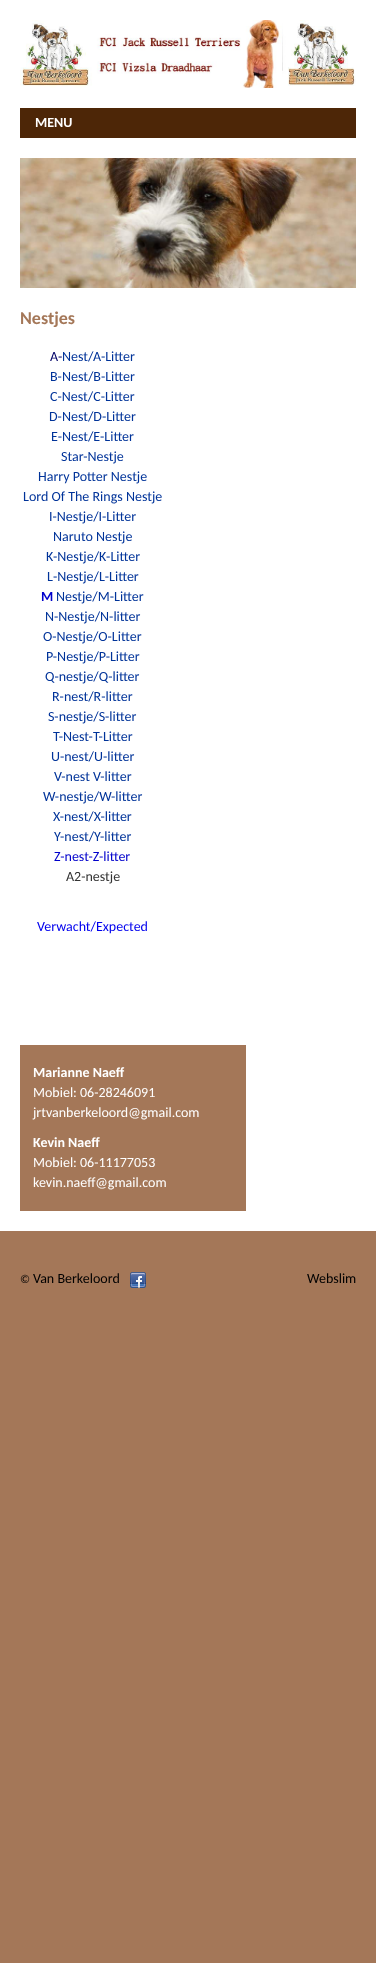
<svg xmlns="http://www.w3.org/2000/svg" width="376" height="1963">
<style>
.a{font:bold 14px Carlito;fill:#fff}
.b{font:bold 18px Carlito;fill:#a47758}
.c{font:14px Carlito;fill:#006}
.d{font:14px Carlito;fill:#039}
.e{font:bold 14px Carlito;fill:#00c}
.f{font:14px Carlito;fill:#00c}
.g{font:14px Carlito;fill:#333}
.h{font:14px Carlito;fill:#00e}
.i{font:14px Carlito;fill:#fff}
.j{font:12px Carlito;fill:#000}
.k{font:14px Carlito;fill:#000}
</style>
<rect width="100%" height="100%" fill="#a47758"/>
<path fill="#fff" d="M0 0h376v1231H0z"/>
<image href="1.png" x="20" y="20" width="336" height="68"/>
<path fill="#4d2607" d="M20 108h336v30H20z"/>
<image href="2.png" x="20" y="158" width="336" height="130"/>
<path fill="#a47758" d="M20 1045h226v166H20z"/>
<image href="3.png" x="130" y="1272" width="16" height="16"/>
<text class="a" x="35" y="127">MENU</text>
<text class="b" x="20" y="324">Nestjes</text>
<text class="c" x="50" y="361">A-</text>
<text class="d" x="62" y="361">Nest/A-Litter</text>
<text class="d" x="50" y="381">B-Nest/B-Litter</text>
<text class="d" x="50" y="401">C-Nest/C-Litter</text>
<text class="d" x="49" y="421">D-Nest/D-Litter</text>
<text class="d" x="51" y="441">E-Nest/E-Litter</text>
<text class="d" x="61" y="461">Star-Nestje</text>
<text class="d" x="38" y="481">Harry Potter Nestje</text>
<text class="d" x="23" y="501">Lord Of The Rings Nestje</text>
<text class="d" x="49" y="521">I-Nestje/I-Litter</text>
<text class="d" x="53" y="541">Naruto Nestje</text>
<text class="d" x="46" y="561">K-Nestje/K-Litter</text>
<text class="d" x="47" y="581">L-Nestje/L-Litter</text>
<text class="e" x="41" y="601">M</text>
<text class="d" x="56" y="601">Nestje/M-Litter</text>
<text class="d" x="45" y="621">N-Nestje/N-litter</text>
<text class="d" x="43" y="641">O-Nestje/O-Litter</text>
<text class="d" x="46" y="661">P-Nestje/P-Litter</text>
<text class="d" x="45" y="681">Q-nestje/Q-litter</text>
<text class="d" x="52" y="701">R-nest/R-litter</text>
<text class="d" x="48" y="721">S-nestje/S-litter</text>
<text class="d" x="53" y="741">T-Nest-T-Litter</text>
<text class="d" x="51" y="761">U-nest/U-litter</text>
<text class="d" x="54" y="781">V-nest V-litter</text>
<text class="d" x="43" y="801">W-nestje/W-litter</text>
<text class="d" x="53" y="821">X-nest/X-litter</text>
<text class="d" x="54" y="841">Y-nest/Y-litter</text>
<text class="f" x="54" y="861">Z-nest-Z-litter</text>
<text class="g" x="66" y="881">A2-nestje</text>
<text class="h" x="37" y="931">Verwacht/Expected</text>
<text class="a" x="33" y="1077">Marianne Naeff</text>
<text class="i" x="33" y="1097">Mobiel: 06-28246091</text>
<text class="i" x="33" y="1117">jrtvanberkeloord@gmail.com</text>
<text class="a" x="33" y="1147">Kevin Naeff</text>
<text class="i" x="33" y="1167">Mobiel: 06-11177053</text>
<text class="i" x="33" y="1187">kevin.naeff@gmail.com</text>
<text class="j" x="20" y="1283">©</text>
<text class="k" x="33" y="1283">Van Berkeloord</text>
<text class="k" x="307" y="1283">Webslim</text>
</svg>
